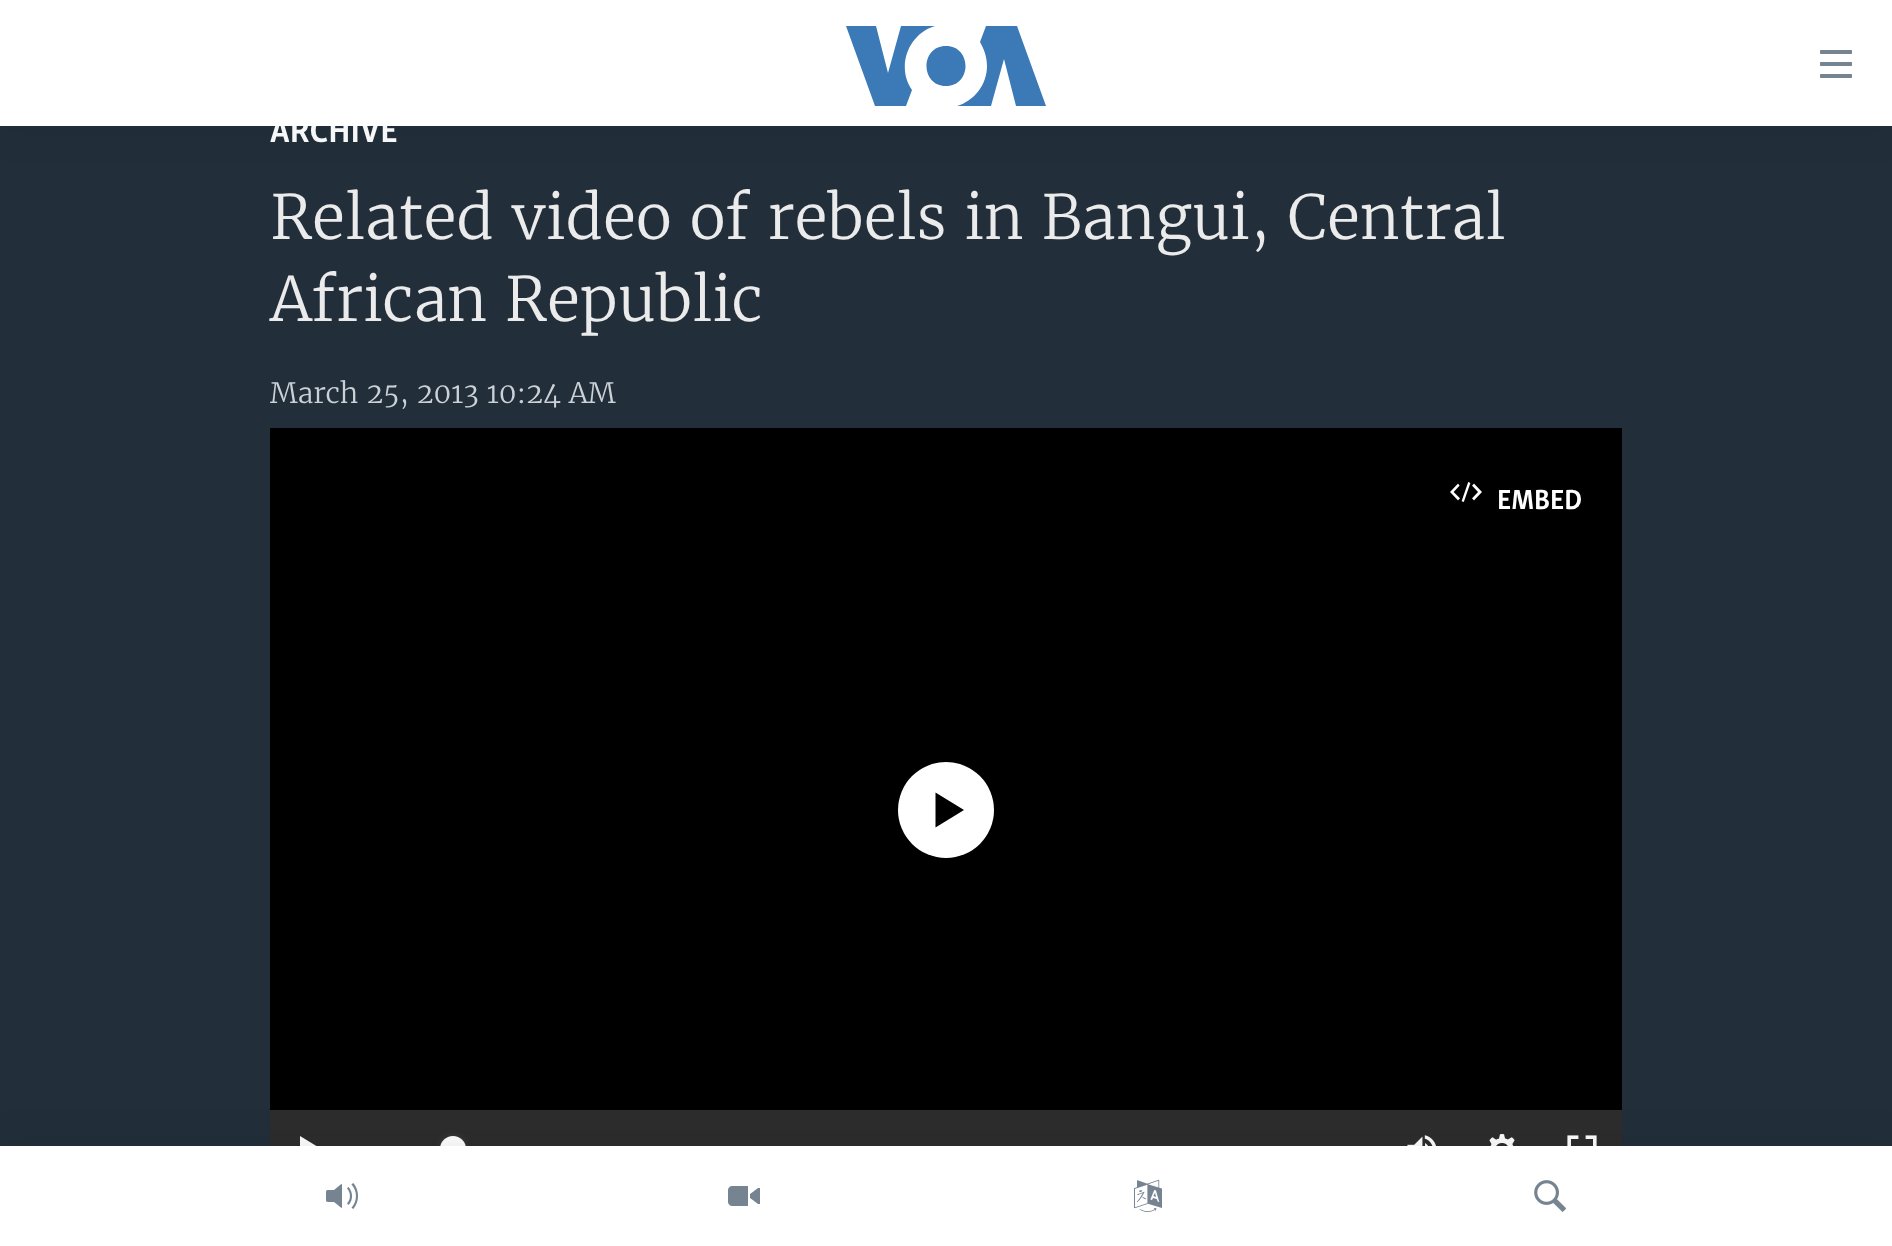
<svg xmlns="http://www.w3.org/2000/svg" width="1892" height="1246">
<style>
.a{font:bold 35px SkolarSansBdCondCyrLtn;fill:#f6f7f8}
.b{font:300 60.8px Merriweather;fill:#ebebeb}
.c{font:300 28px Merriweather;fill:#cbd1d6}
.d{font:bold 28.5px SkolarSansBdCondCyrLtn;fill:#fff}
</style>
<rect width="100%" height="100%" fill="#222f3a"/>
<path fill="#0000001a" filter="blur(20px)" d="M0 0h1892v126H0z"/>
<path fill="#000" d="M270 428h1352v682H270z"/>
<path fill="#2d2d2d" d="M270 1110h1352v36H270z"/>
<path fill="#fff" d="M300 1164l23-14l-23-14z"/>
<rect fill="#414144" filter="blur(3px)" x="440" y="1136" width="26" height="26" rx="13"/>
<circle fill="#fff" cx="453" cy="1149" r="13"/>
<image href="7.png" x="1407" y="1135" width="29" height="11"/>
<image href="8.png" x="1489" y="1134" width="26" height="12"/>
<image href="9.png" x="1567" y="1135" width="30" height="11"/>
<path fill="#0000001a" filter="blur(20px)" d="M0 1146h1892v100H0z"/>
<path fill="#fff" d="M0 1146h1892v100H0z"/>
<image href="2.png" x="326" y="1183" width="32" height="26"/>
<image href="3.png" x="728" y="1186" width="32" height="20"/>
<image href="4.png" x="1134" y="1179" width="28" height="34"/>
<image href="5.png" x="1534" y="1180" width="32" height="32"/>
<image href="6.png" x="1450" y="482" width="32" height="20"/>
<circle fill="#fff" cx="946" cy="810" r="48"/>
<path fill="#000" d="M935.5 827.5l28.5-17.5l-28.5-17.5z"/>
<text class="a" x="270" y="142">ARCHIVE</text>
<path fill="#fff" d="M0 0h1892v126H0z"/>
<image href="1.png" x="1820" y="50" width="32" height="28"/>
<path fill="#3b79b7" d="M912 90l-6 16h-31l-29-80h30l12 47l13-47h34c-27 8-39 41-23 64zm34-44c-26 0-26 40 0 40c26 0 26-40 0-40zm41 20c0 19-13 35-30 40h34l13-47l12 47h30l-29-80h-31l-6 16c4 7 7 15 7 24z"/>
<text class="b" x="270" y="239">Related video of rebels in Bangui, Central</text>
<text class="b" x="270" y="321">African Republic</text>
<text class="c" x="270" y="403">March 25, 2013 10:24 AM</text>
<text class="d" x="1497" y="509">EMBED</text>
</svg>
